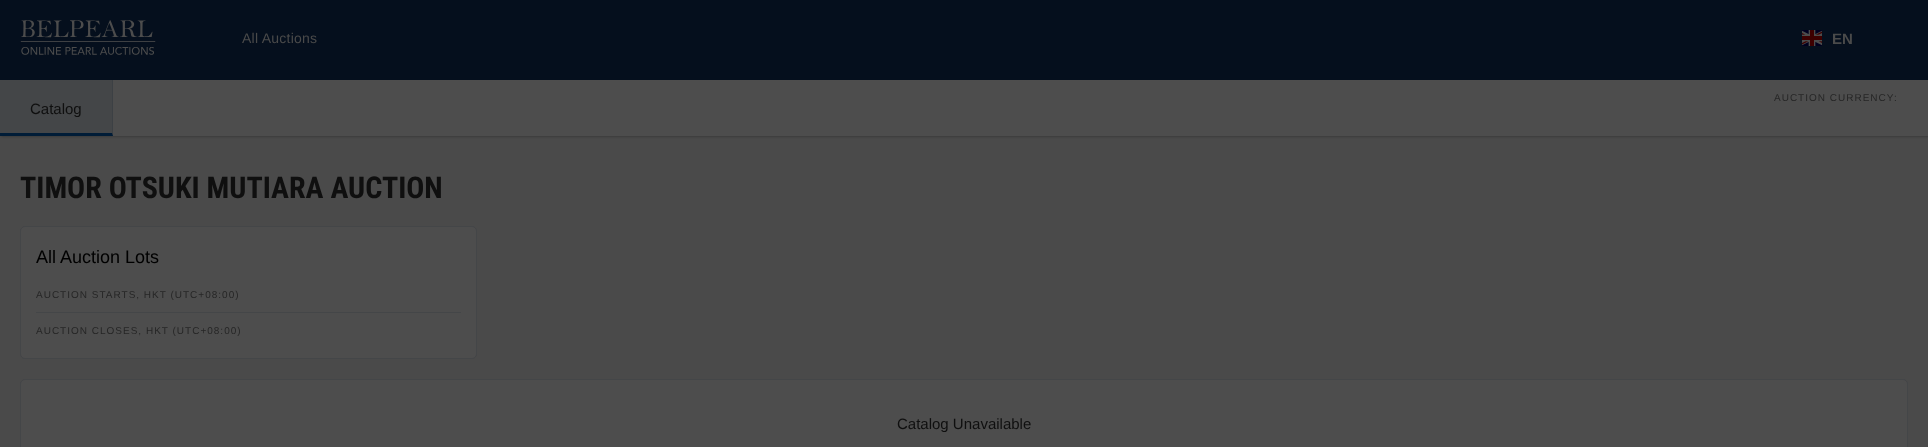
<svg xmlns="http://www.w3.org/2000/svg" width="1928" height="447">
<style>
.a{font:14px Liberation Sans;letter-spacing:0.25px;fill:#4a4a4a}
.b{font:bold 15px Liberation Sans;fill:#4a4a4a}
.c{font:10px Liberation Sans;letter-spacing:1px;fill:#262626}
.d{font:15px Liberation Sans;fill:#0f0f0f}
.e{font:bold 30px Roboto Condensed;fill:#0f0f0f}
.f{font:18px Liberation Sans;fill:#000}
</style>
<rect width="100%" height="100%" fill="#4a4a4a"/>
<path fill="#00000066" filter="blur(1.5px)" d="M1 80h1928v56H1z"/>
<path fill="#050f1d" d="M0 0h1928v80H0z"/>
<image href="1.png" x="20" y="20" width="136" height="35"/>
<image href="2.png" x="1802" y="30" width="20" height="16"/>
<path fill="#4d4d4d" d="M113 80h1815v56H113z"/>
<path fill="#444648" d="M0 80h113v56H0z"/>
<path fill="#3c4044" d="M113 80v56l-1-3v-53z"/>
<path fill="#001c37" d="M113 136h-113v-3h112z"/>
<rect fill="#4d4d4d" x="20" y="226" width="457" height="133" rx="5"/>
<rect fill="none" stroke="#121f2c26" x="20.5" y="226.5" width="456" height="132" rx="4.5"/>
<path fill="#444648" d="M36 312h425v1H36z"/>
<rect fill="#4d4d4d" x="20" y="379" width="1888" height="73" rx="5"/>
<rect fill="none" stroke="#121f2c26" x="20.5" y="379.5" width="1887" height="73" rx="4.5"/>
<text class="a" x="242" y="43">All Auctions</text>
<text class="b" x="1832" y="44">EN</text>
<text class="c" x="1774" y="101">AUCTION CURRENCY:</text>
<text class="d" x="30" y="114">Catalog</text>
<text class="e" x="20" y="198">TIMOR OTSUKI MUTIARA AUCTION</text>
<text class="f" x="36" y="263">All Auction Lots</text>
<text class="c" x="36" y="298">AUCTION STARTS, HKT (UTC+08:00)</text>
<text class="c" x="36" y="334">AUCTION CLOSES, HKT (UTC+08:00)</text>
<text class="d" x="897" y="429">Catalog Unavailable</text>
</svg>
